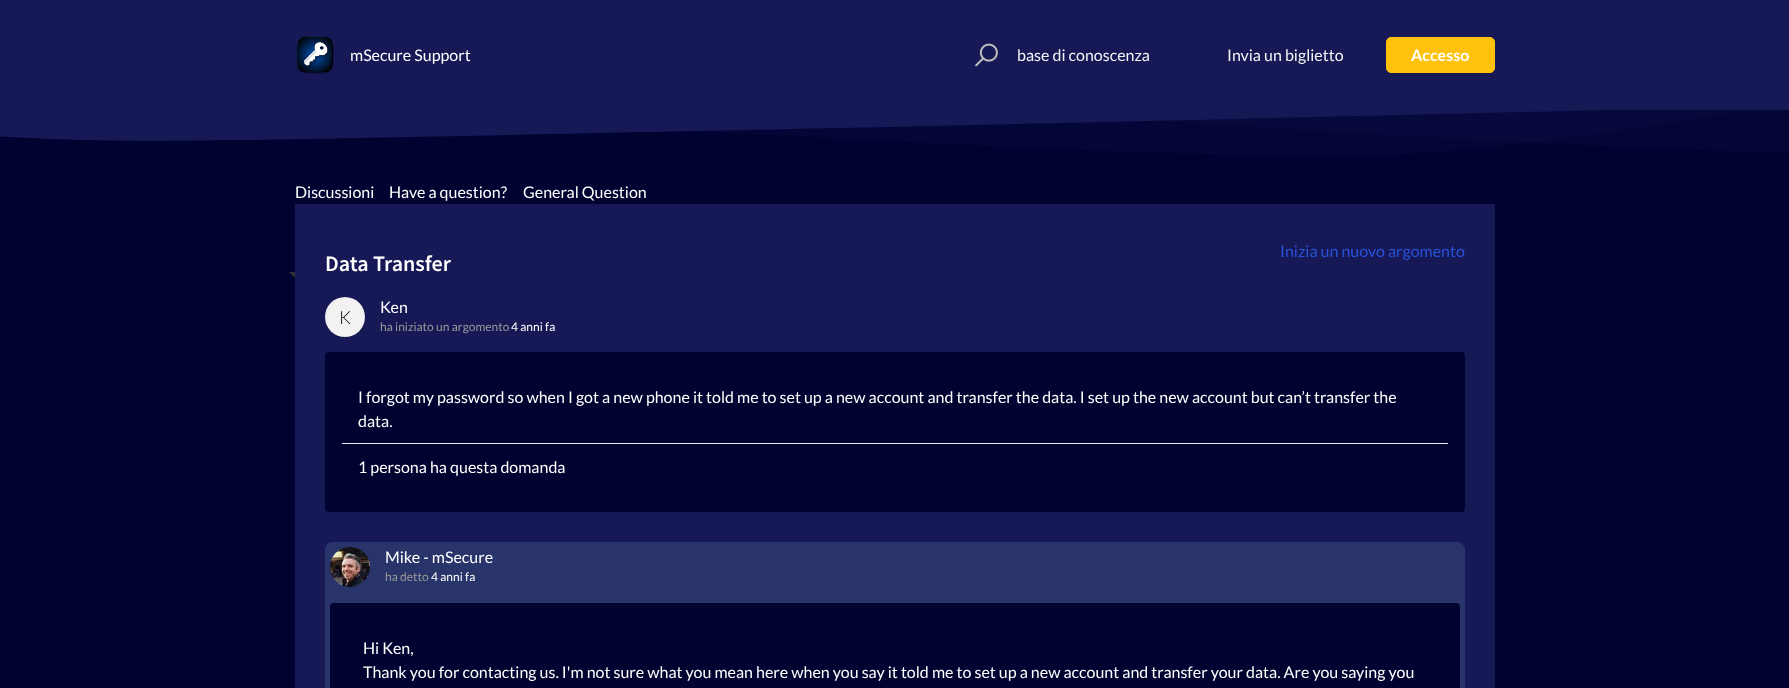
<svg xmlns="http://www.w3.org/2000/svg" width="1789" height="688">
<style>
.a{font:16px Lato;fill:#fff}
.b{font:16px Lato;fill:#f4f4f4}
.c{font:bold 16px Lato;fill:#fff}
.d{font:16px Lato;fill:#2753d7}
.e{font:600 22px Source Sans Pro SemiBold;fill:#fff}
.f{font:300 18px Lato;fill:#000}
.g{font:12px Lato;fill:#999}
.h{font:12px Lato;fill:#fff}
</style>
<defs>
<clipPath id="clip1"><path d="M0 109h1789v47H0z"/></clipPath>
</defs>
<rect width="100%" height="100%" fill="#000230"/>
<path fill="#161956" d="M0 0h1789v110H0z"/>
<image href="1.png" x="296" y="36" width="38" height="38"/>
<image href="2.png" x="975" y="43" width="23" height="24"/>
<rect fill="#ffc10a" stroke="#ffc10a" x="1386.5" y="37.5" width="108" height="35" rx="4.5"/>
<path fill="#161956" d="M154 141c179 0 1496-32 1496-32h-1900c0 0 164 32 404 32z"/>
<g clip-path="url(#clip1)">
<path fill="#16195633" d="M1343 156c209 0 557-76 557-76h-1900c0 0 897 76 1343 76z"/>
<path fill="#16195633" d="M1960 156c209 0 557-76 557-76h-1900c0 0 897 76 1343 76z"/>
</g>
<path fill="#161956" d="M295 204h1200v484H295z"/>
<path fill="#333" d="M289 272h6l-3 3z"/>
<path fill="#333" d="M295 272v6l-3-3z"/>
<circle fill="#f3f1f1" cx="345" cy="317" r="20"/>
<path fill="none" stroke="#0000000a" d="M325.5 297.5h39v39H325.5z"/>
<rect fill="#000230" x="325" y="352" width="1140" height="160" rx="4"/>
<path fill="#efefef" d="M342 443h1106v1H342z"/>
<path fill="#29346a" d="M333 542h1124c4.5 0 8 3.5 8 8v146h-1140v-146c0-4.5 3.5-8 8-8z"/>
<image href="3.png" x="330" y="547" width="40" height="40"/>
<rect fill="#000230" x="330" y="603" width="1130" height="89" rx="4"/>
<text class="a" x="350" y="61">mSecure Support</text>
<text class="b" x="1017" y="61">base di conoscenza</text>
<text class="b" x="1227" y="61">Invia un biglietto</text>
<text class="c" x="1411" y="61">Accesso</text>
<text class="a" x="295" y="198">Discussioni</text>
<text class="a" x="389" y="198">Have a question?</text>
<text class="a" x="523" y="198">General Question</text>
<text class="d" x="1280" y="257">Inizia un nuovo argomento</text>
<text class="e" x="325" y="271">Data Transfer</text>
<text class="f" x="339" y="324">K</text>
<text class="a" x="380" y="313">Ken</text>
<text class="g" x="380" y="331">ha iniziato un argomento</text>
<text class="h" x="511" y="331">4 anni fa</text>
<text class="a" x="358" y="403">I forgot my password so when I got a new phone it told me to set up a new account and transfer the data. I set up the new account but can’t transfer the</text>
<text class="a" x="358" y="427">data.</text>
<text class="a" x="358" y="473">1 persona ha questa domanda</text>
<text class="a" x="385" y="563">Mike - mSecure</text>
<text class="g" x="385" y="581">ha detto</text>
<text class="h" x="431" y="581">4 anni fa</text>
<text class="a" x="363" y="654">Hi Ken,</text>
<text class="a" x="363" y="678">Thank you for contacting us. I'm not sure what you mean here when you say it told me to set up a new account and transfer your data. Are you saying you</text>
</svg>
